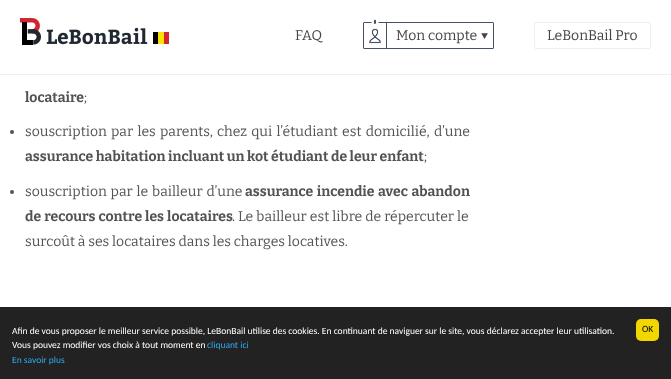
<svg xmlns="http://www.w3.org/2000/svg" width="671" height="379">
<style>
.a{font:14px Bitter;fill:#444}
.b{font:bold 14px Bitter;fill:#535353}
.c{font:14px Bitter;fill:#535353}
.d{font:9.52px Carlito;fill:#fff}
.e{font:9.52px Carlito;fill:#31a8f0}
.f{font:9.52px Carlito;fill:#000}
</style>
<rect width="100%" height="100%" fill="#fff"/>
<path fill="#eee" d="M0 74h671v1H0z"/>
<image href="1.png" x="20" y="18" width="128" height="27"/>
<path fill="#000" d="M153 32h5v12H153z"/>
<path fill="#fce100" d="M158 32h6v12H158z"/>
<path fill="#d1262f" d="M164 32h5v12H164z"/>
<rect fill="none" stroke="#455266" x="363.5" y="22.5" width="130" height="26" rx="0.5"/>
<image href="2.png" x="369" y="19" width="12" height="25"/>
<path fill="#455266" d="M386 23h1v26H386z"/>
<rect fill="none" stroke="#eee" x="534.5" y="22.5" width="116" height="26" rx="1.5"/>
<circle fill="#535353" cx="12" cy="132" r="2"/>
<circle fill="#535353" cx="12" cy="192" r="2"/>
<path fill="#222" d="M0 307h671v72H0z"/>
<rect fill="#f1d600" x="636" y="319" width="23" height="22" rx="5"/>
<text class="a" x="295" y="40">FAQ</text>
<text class="a" x="396" y="40">Mon compte ▼</text>
<text class="a" x="547" y="40">LeBonBail Pro</text>
<text class="b" x="25" y="102">locataire</text>
<text class="c" x="84" y="102">;</text>
<text class="c" x="25" y="136" word-spacing="1.4">souscription par les parents, chez qui l’étudiant est domicilié, d’une</text>
<text class="b" x="25" y="161">assurance habitation incluant un kot étudiant de leur enfant</text>
<text class="c" x="424" y="161">;</text>
<text class="c" x="25" y="196" word-spacing="1">souscription par le bailleur d’une</text>
<text class="b" x="245" y="196" word-spacing="1">assurance incendie avec abandon</text>
<text class="b" x="25" y="221" word-spacing="0.5">de recours contre les locataires</text>
<text class="c" x="232" y="221" word-spacing="0.25">. Le bailleur est libre de répercuter le</text>
<text class="c" x="25" y="246">surcoût à ses locataires dans les charges locatives.</text>
<text class="d" x="12" y="334">Afin de vous proposer le meilleur service possible, LeBonBail utilise des cookies. En continuant de naviguer sur le site, vous déclarez accepter leur utilisation.</text>
<text class="d" x="12" y="348">Vous pouvez modifier vos choix à tout moment en</text>
<text class="e" x="207" y="348">cliquant ici</text>
<text class="e" x="12" y="363">En savoir plus</text>
<text class="f" x="642" y="332">OK</text>
</svg>
